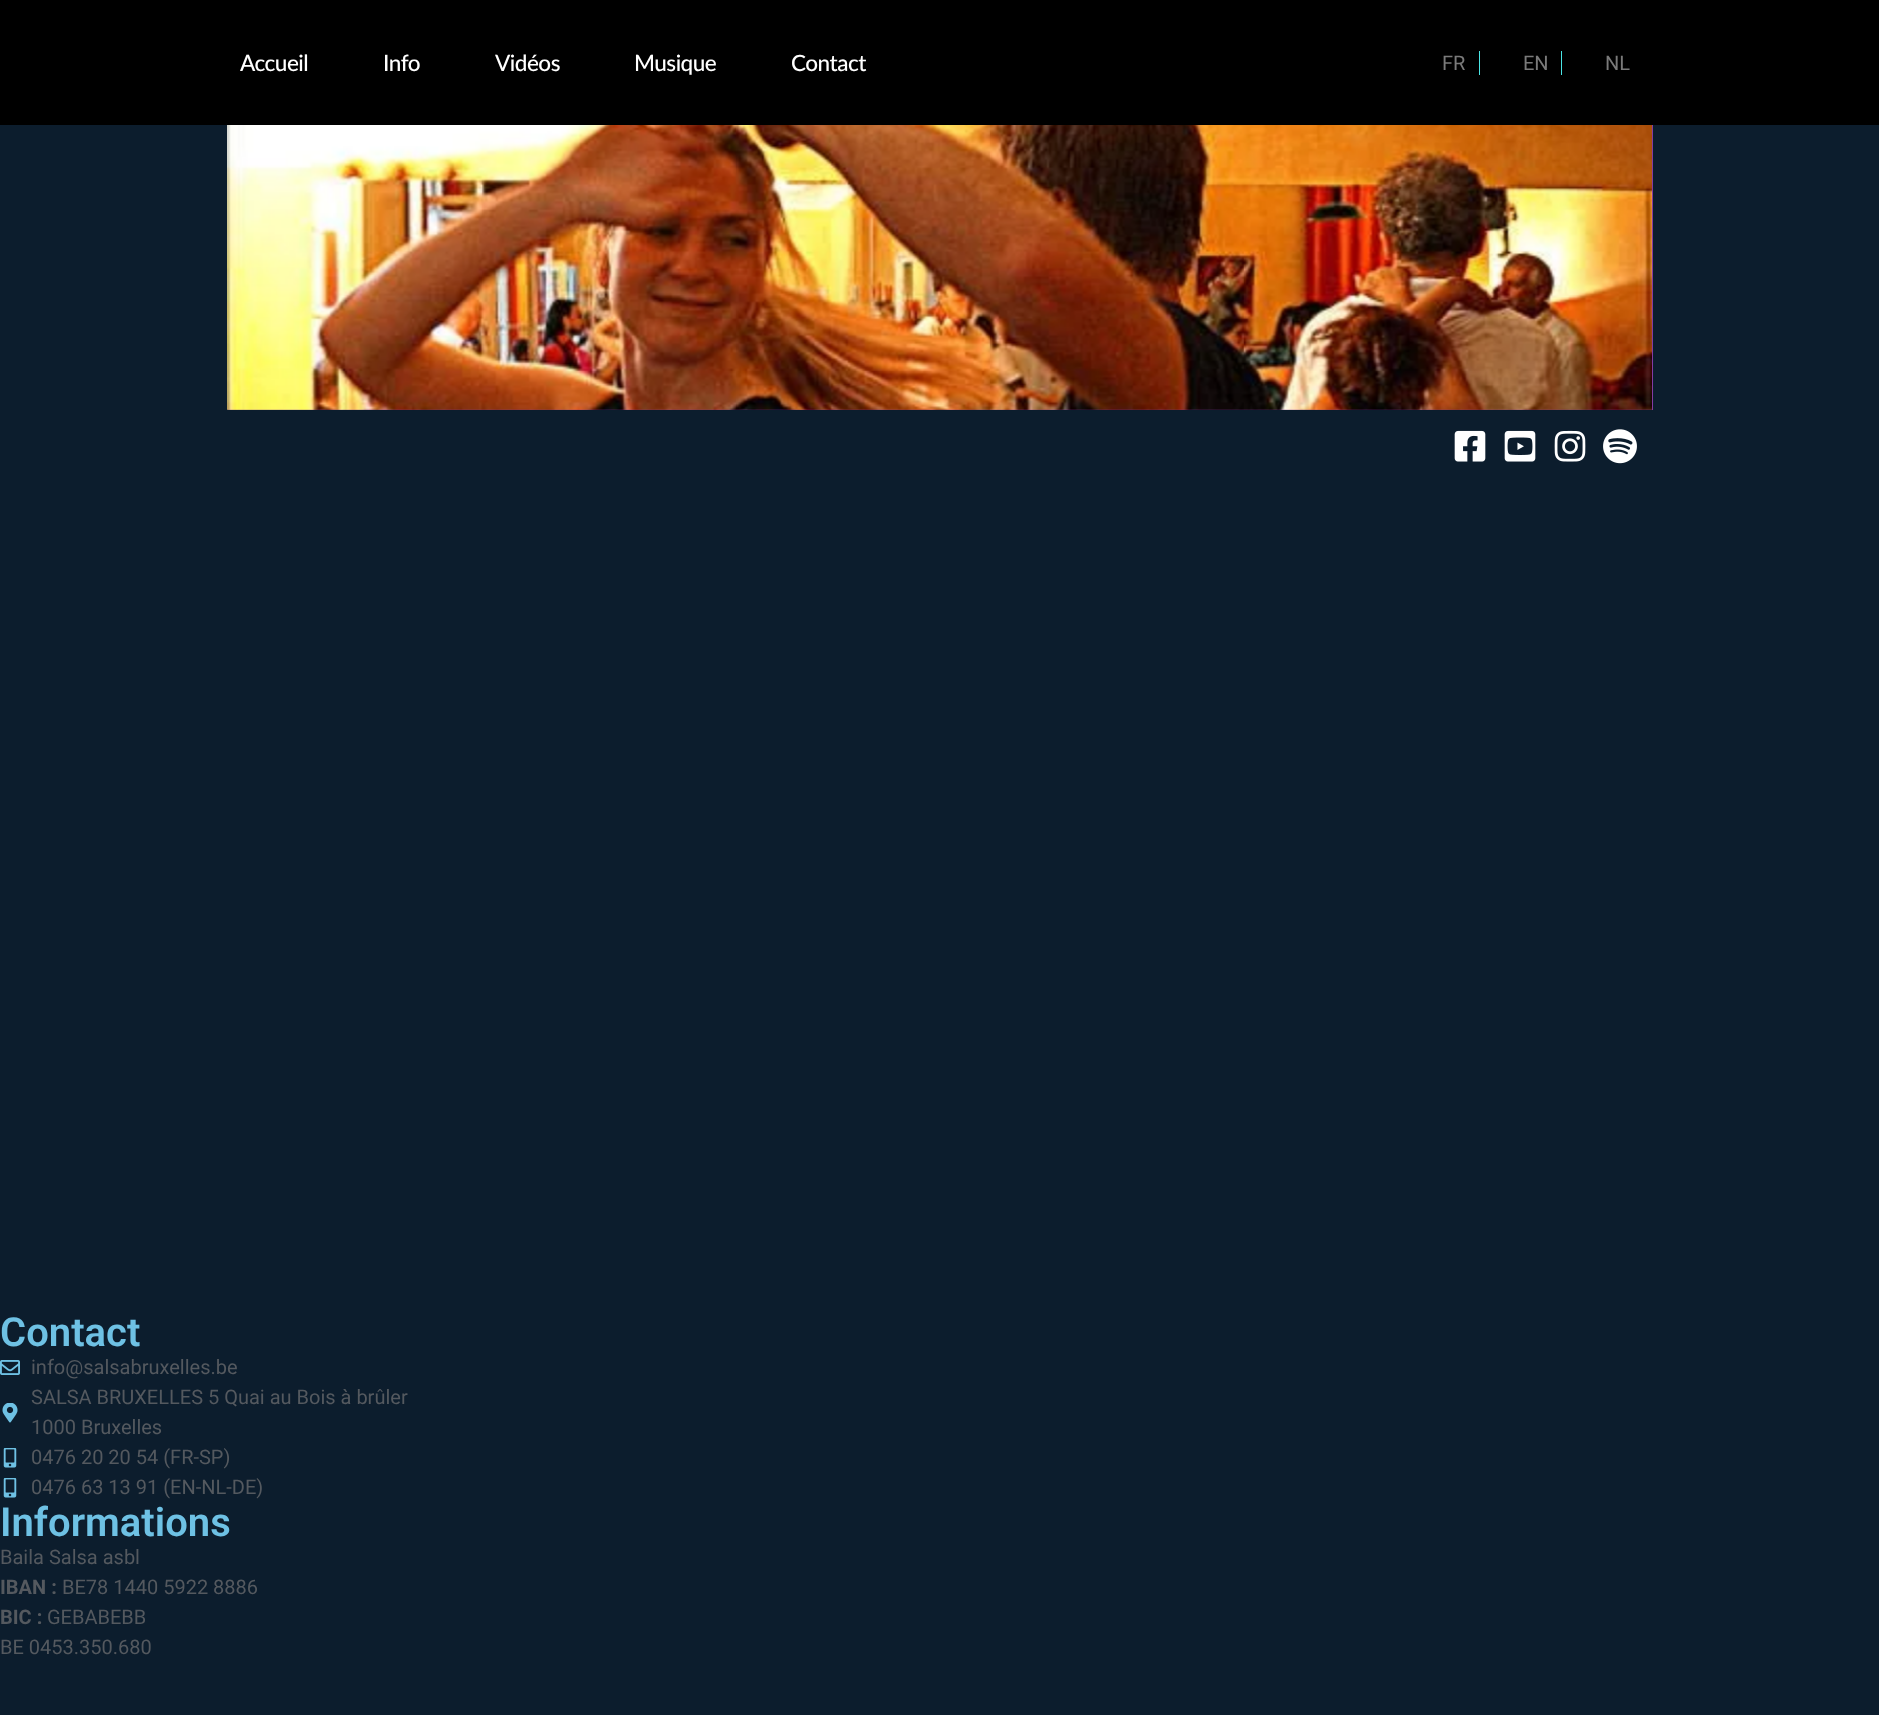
<svg xmlns="http://www.w3.org/2000/svg" width="1879" height="1715">
<style>
.a{font:500 22.5px Lato;letter-spacing:-0.5px;fill:#fff}
.b{font:20px Roboto;fill:#7a7a7a}
.c{font:600 40px Roboto;fill:#6ec1e4}
.d{font:20px Roboto;fill:#54595f}
.e{font:bold 20px Roboto;fill:#54595f}
</style>
<rect width="100%" height="100%" fill="#0c1d2d"/>
<path fill="#000" d="M0 0h1879v125H0z"/>
<path fill="#4ae5e5" d="M1479 51h1v24H1479z"/>
<path fill="#4ae5e5" d="M1561 51h1v24H1561z"/>
<path fill="#833ca3" d="M228 125h1425v285H228z"/>
<image href="1.png" x="227" y="125" width="1425" height="285"/>
<image href="2.png" x="1454" y="430" width="32" height="32"/>
<image href="3.png" x="1504" y="430" width="32" height="32"/>
<image href="4.png" x="1554" y="430" width="32" height="32"/>
<image href="5.png" x="1603" y="429" width="34" height="35"/>
<image href="6.png" x="0" y="1360" width="20" height="15"/>
<image href="7.png" x="2" y="1403" width="16" height="20"/>
<image href="8.png" x="3" y="1448" width="14" height="20"/>
<image href="8.png" x="3" y="1478" width="14" height="20"/>
<text class="a" x="240" y="71">Accueil</text>
<text class="a" x="383" y="71">Info</text>
<text class="a" x="495" y="71">Vidéos</text>
<text class="a" x="634" y="71">Musique</text>
<text class="a" x="791" y="71">Contact</text>
<text class="b" x="1442" y="70">FR</text>
<text class="b" x="1523" y="70">EN</text>
<text class="b" x="1605" y="70">NL</text>
<text class="c" x="0" y="1346">Contact</text>
<text class="d" x="31" y="1374">info@salsabruxelles.be</text>
<text class="d" x="31" y="1404">SALSA BRUXELLES 5 Quai au Bois à brûler</text>
<text class="d" x="31" y="1434">1000 Bruxelles</text>
<text class="d" x="31" y="1464">0476 20 20 54 (FR-SP)</text>
<text class="d" x="31" y="1494">0476 63 13 91 (EN-NL-DE)</text>
<text class="c" x="0" y="1536">Informations</text>
<text class="d" x="0" y="1564">Baila Salsa asbl</text>
<text class="e" x="0" y="1594">IBAN :</text>
<text class="d" x="62" y="1594">BE78 1440 5922 8886</text>
<text class="e" x="0" y="1624">BIC :</text>
<text class="d" x="47" y="1624">GEBABEBB</text>
<text class="d" x="0" y="1654">BE 0453.350.680</text>
</svg>
